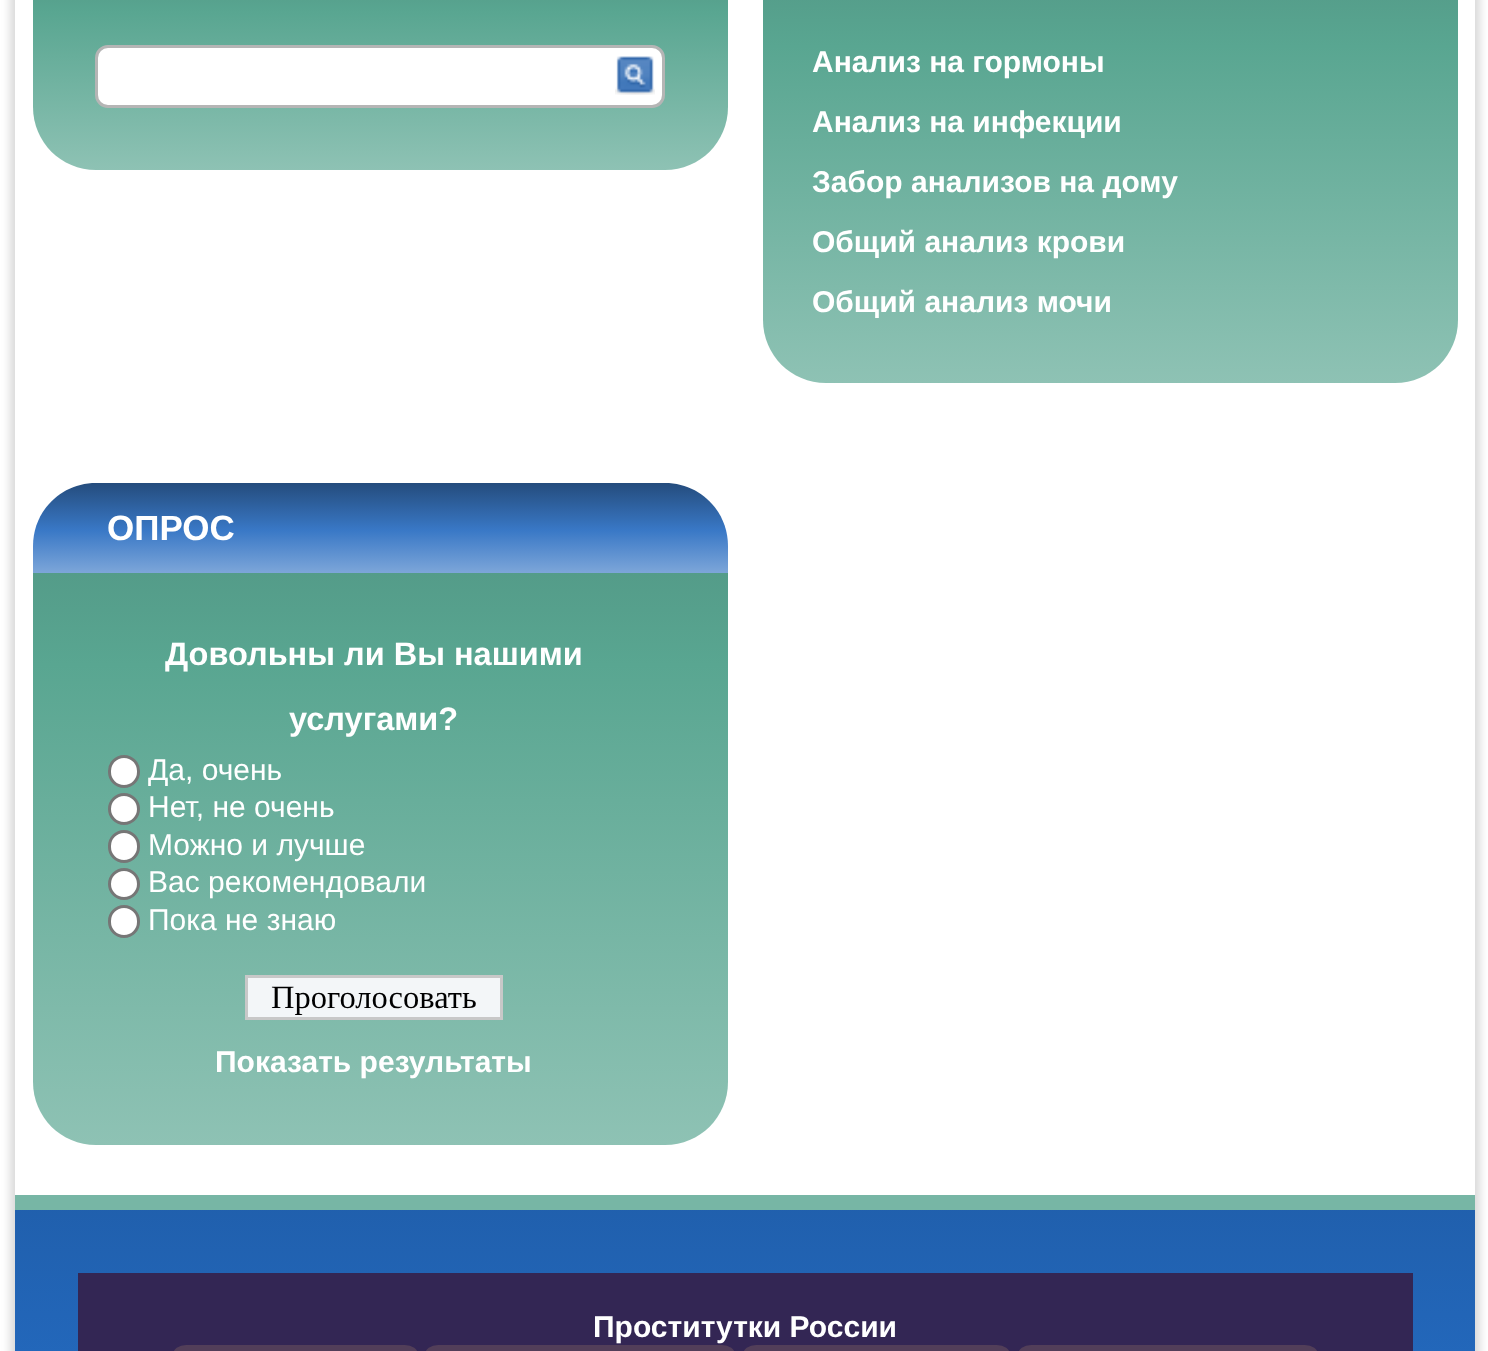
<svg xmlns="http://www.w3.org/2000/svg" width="1488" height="1351">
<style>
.a{font:bold 30px Liberation Sans;fill:#fff}
.b{font:bold 35px Liberation Sans;fill:#fff}
.c{font:bold 32.5px Liberation Sans;fill:#fff}
.d{font:30px Liberation Sans;fill:#fff}
.e{font:32.5px Liberation Serif;fill:#000}
</style>
<defs>
<clipPath id="clip1"><path d="M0 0h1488v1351h-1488zm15-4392h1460v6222h-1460z" clip-rule="evenodd"/></clipPath>
<linearGradient id="g1" gradientUnits="userSpaceOnUse" x1="380" y1="-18" x2="380" y2="170"><stop offset="0" stop-color="#549c89"/><stop offset="0.16" stop-color="#59a691"/><stop offset="1" stop-color="#8ec2b4"/></linearGradient>
<linearGradient id="g2" gradientUnits="userSpaceOnUse" x1="1110" y1="-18" x2="1110" y2="383"><stop offset="0" stop-color="#549c89"/><stop offset="0.16" stop-color="#59a691"/><stop offset="1" stop-color="#8ec2b4"/></linearGradient>
<linearGradient id="g3" gradientUnits="userSpaceOnUse" x1="380" y1="482" x2="380" y2="573"><stop offset="0" stop-color="#244b7b"/><stop offset="0.53" stop-color="#3978c6"/><stop offset="1" stop-color="#7da6d9"/></linearGradient>
<linearGradient id="g4" gradientUnits="userSpaceOnUse" x1="380" y1="573" x2="380" y2="1145"><stop offset="0" stop-color="#549c89"/><stop offset="0.16" stop-color="#59a691"/><stop offset="1" stop-color="#8ec2b4"/></linearGradient>
<linearGradient id="g5" gradientUnits="userSpaceOnUse" x1="745" y1="1195" x2="745" y2="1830"><stop offset="0" stop-color="#205fac"/><stop offset="0.75" stop-color="#2877d7"/><stop offset="0.9" stop-color="#307cd9"/><stop offset="0.9" stop-color="#2877d7"/><stop offset="0.9" stop-color="#246bc2"/><stop offset="1" stop-color="#246bc2"/></linearGradient>
</defs>
<rect width="100%" height="100%" fill="#fff"/>
<g clip-path="url(#clip1)">
<path fill="#00000026" filter="blur(4px)" d="M10 -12h1470v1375H10z"/>
</g>
<path fill="url(#g1)" d="M33-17h695v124c0 35-28 63-63 63h-569c-35 0-63-28-63-63z"/>
<rect fill="#fff" stroke="#b5b5b5" stroke-width="3" x="96.5" y="46.5" width="567" height="60" rx="11.5"/>
<image href="1.png" x="615" y="56" width="40" height="39"/>
<path fill="url(#g2)" d="M763-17h695v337c0 35-28 63-63 63h-569c-35 0-63-28-63-63z"/>
<path fill="url(#g3)" d="M96 483h569c35 0 63 28 63 63v27h-695v-27c0-35 28-63 63-63z"/>
<path fill="url(#g4)" d="M33 573h695v509c0 35-28 63-63 63h-569c-35 0-63-28-63-63z"/>
<rect fill="#fff" stroke="#767676" stroke-width="3" x="109.5" y="756.5" width="29" height="30" rx="14.5"/>
<circle fill="#fff" stroke="#767676" stroke-width="3" cx="124" cy="809" r="14.5"/>
<rect fill="#fff" stroke="#767676" stroke-width="3" x="109.5" y="831.5" width="29" height="30" rx="14.5"/>
<circle fill="#fff" stroke="#767676" stroke-width="3" cx="124" cy="884" r="14.5"/>
<rect fill="#fff" stroke="#767676" stroke-width="3" x="109.5" y="906.5" width="29" height="30" rx="14.5"/>
<path fill="#f3f6f8" stroke="#c8c8c8" stroke-width="3" d="M246.5 976.5h255v42H246.5z"/>
<path fill="url(#g5)" d="M15 1210h1460v141H15z"/>
<path fill="#77b6a5" d="M15 1195h1460v15H15z"/>
<path fill="#332654" d="M78 1273h1335v78H78z"/>
<rect fill="#523e59" x="173" y="1345" width="245" height="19" rx="13"/>
<rect fill="#523e59" x="425" y="1345" width="310" height="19" rx="13"/>
<rect fill="#523e59" x="743" y="1345" width="267" height="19" rx="13"/>
<rect fill="#523e59" x="1018" y="1345" width="300" height="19" rx="13"/>
<text class="a" x="812" y="72">Анализ на гормоны</text>
<text class="a" x="812" y="132">Анализ на инфекции</text>
<text class="a" x="812" y="192">Забор анализов на дому</text>
<text class="a" x="812" y="252">Общий анализ крови</text>
<text class="a" x="812" y="312">Общий анализ мочи</text>
<text class="b" x="107" y="540">ОПРОС</text>
<text class="c" x="165" y="665">Довольны ли Вы нашими</text>
<text class="c" x="289" y="730">услугами?</text>
<text class="d" x="148" y="780">Да, очень</text>
<text class="d" x="148" y="817">Нет, не очень</text>
<text class="d" x="148" y="855">Можно и лучше</text>
<text class="d" x="148" y="892">Вас рекомендовали</text>
<text class="d" x="148" y="930">Пока не знаю</text>
<text class="e" x="271" y="1008">Проголосовать</text>
<text class="a" x="215" y="1072">Показать результаты</text>
<text class="a" x="593" y="1337">Проститутки России</text>
</svg>
